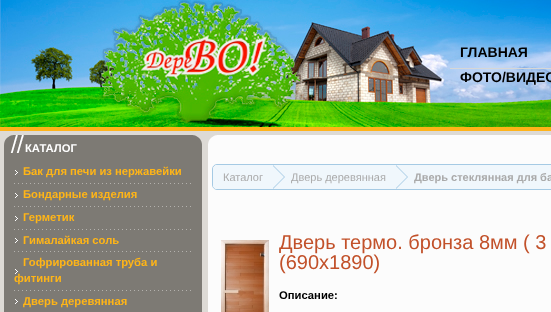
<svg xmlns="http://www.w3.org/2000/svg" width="551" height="312">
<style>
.a{font:bold 14px Liberation Sans;fill:#000}
.b{font:bold 11.25px Liberation Sans;fill:#fff}
.c{font:bold 11.25px Liberation Sans;fill:#ffb517}
.d{font:11px Liberation Sans;fill:#aaa}
.e{font:bold 11px Liberation Sans;fill:#aaa}
.f{font:20px Liberation Sans;fill:#c2512a}
.g{font:bold 11.25px Liberation Sans;fill:#000}
</style>
<defs>
<clipPath id="clip1"><rect x="213" y="165" width="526" height="24" rx="4"/></clipPath>
</defs>
<rect width="100%" height="100%" fill="#fff"/>
<image href="1.png" x="0" y="0" width="551" height="127"/>
<path fill="#ffb319" d="M0 127h551v4H0z"/>
<path fill="#d7d7d6" d="M450 68h101v1H450z"/>
<path fill="#dddad5" d="M0 131h551v181H0z"/>
<path fill="#7d7a74" d="M4 153h198v159H4z"/>
<image href="2.png" x="4" y="135" width="198" height="18"/>
<image href="3.png" x="14" y="183" width="177" height="1"/>
<image href="4.png" x="15" y="170" width="3" height="5"/>
<image href="3.png" x="14" y="206" width="177" height="1"/>
<image href="4.png" x="15" y="193" width="3" height="5"/>
<image href="3.png" x="14" y="229" width="177" height="1"/>
<image href="4.png" x="15" y="216" width="3" height="5"/>
<image href="3.png" x="14" y="251" width="177" height="1"/>
<image href="4.png" x="15" y="238" width="3" height="5"/>
<image href="3.png" x="14" y="290" width="177" height="1"/>
<image href="4.png" x="15" y="269" width="3" height="5"/>
<image href="4.png" x="15" y="299" width="3" height="5"/>
<path fill="#fcfcfc" d="M208 135h343v177H208z"/>
<image href="5.png" x="208" y="135" width="9" height="9"/>
<image href="6.png" x="212" y="165" width="5" height="4"/>
<rect fill="none" stroke="#a5cae4" x="212.5" y="164.5" width="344" height="25" rx="4.5"/>
<g clip-path="url(#clip1)">
<path fill="#f0f7fc" d="M217 165h56v25h-56c-2 0-4-2-4-4v-17c0-2 2-4 4-4z"/>
</g>
<path fill="#f0f7fc" d="M273 165h278v24H273z"/>
<path fill="#a5cae4" d="M273 189v-24l12 12z"/>
<path fill="#f0f7fc" d="M272 189v-24l12 12z"/>
<path fill="#a5cae4" d="M396 189v-24l12 12z"/>
<path fill="#f0f7fc" d="M395 189v-24l12 12z"/>
<image href="7.png" x="221" y="240" width="48" height="72"/>
<text class="a" x="460" y="57">ГЛАВНАЯ</text>
<text class="a" x="460" y="82">ФОТО/ВИДЕО</text>
<text class="b" x="25" y="152">КАТАЛОГ</text>
<text class="c" x="23" y="175">Бак для печи из нержавейки</text>
<text class="c" x="23" y="198">Бондарные изделия</text>
<text class="c" x="23" y="221">Герметик</text>
<text class="c" x="23" y="244">Гималайкая соль</text>
<text class="c" x="23" y="266">Гофрированная труба и</text>
<text class="c" x="14" y="282">фитинги</text>
<text class="c" x="23" y="305">Дверь деревянная</text>
<text class="d" x="223" y="181">Каталог</text>
<text class="d" x="291" y="181">Дверь деревянная</text>
<text class="e" x="414" y="181">Дверь стеклянная для ба</text>
<text class="f" x="279" y="249">Дверь термо. бронза 8мм ( 3</text>
<text class="f" x="279" y="269">(690х1890)</text>
<text class="g" x="279" y="299">Описание:</text>
</svg>
